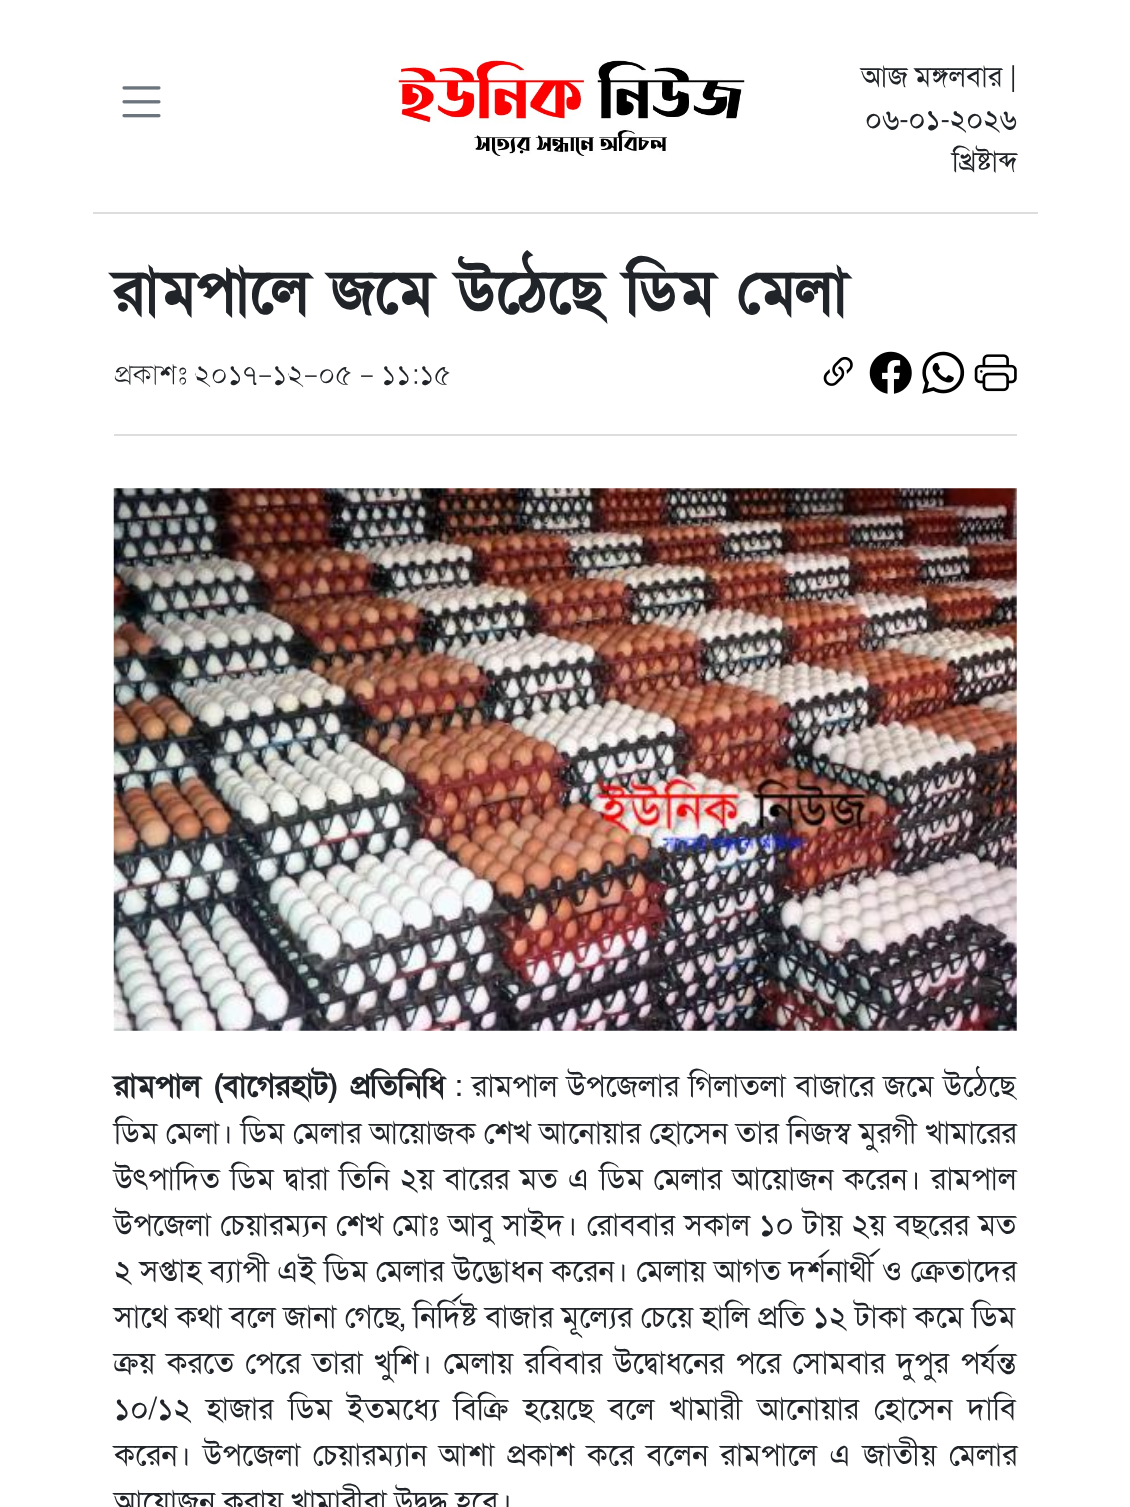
<svg xmlns="http://www.w3.org/2000/svg" width="1130" height="1507">
<style>
.a{font:28.5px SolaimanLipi;fill:#212529}
.b{font:bold 61.6px SolaimanLipi;fill:#212529}
.c{font:100 28.5px SolaimanLipi;fill:#212529}
.d{font:bold 30.75px SolaimanLipi;fill:#212529}
.e{font:30.75px SolaimanLipi;fill:#212529}
</style>
<rect width="100%" height="100%" fill="#fff"/>
<path fill="#ddd" d="M93 212h945v2H93z"/>
<image href="1.png" x="122" y="86" width="39" height="32"/>
<image href="2.png" x="391" y="60" width="354" height="98"/>
<path fill="#ddd" d="M114 434h903v2H114z"/>
<image href="3.png" x="823" y="356" width="30" height="30"/>
<image href="4.png" x="869" y="351" width="43" height="43"/>
<image href="5.png" x="922" y="351" width="43" height="43"/>
<image href="6.png" x="974" y="354" width="43" height="38"/>
<image href="7.png" x="113" y="488" width="904" height="543"/>
<text class="a" x="861" y="86">আজ মঙ্গলবার |</text>
<text class="a" x="865" y="129">০৬-০১-২০২৬</text>
<text class="a" x="952" y="171">খ্রিষ্টাব্দ</text>
<text class="b" x="114" y="312">রামপালে জমে উঠেছে ডিম মেলা</text>
<text class="c" x="114" y="384">প্রকাশঃ ২০১৭-১২-০৫ - ১১:১৫</text>
<text class="d" x="114" y="1096" word-spacing="2">রামপাল (বাগেরহাট) প্রতিনিধি</text>
<text class="e" x="454" y="1096" word-spacing="1.5">: রামপাল উপজেলার গিলাতলা বাজারে জমে উঠেছে</text>
<text class="e" x="114" y="1143" word-spacing="0.25">ডিম মেলা। ডিম মেলার আয়োজক শেখ আনোয়ার হোসেন তার নিজস্ব মুরগী খামারের</text>
<text class="e" x="114" y="1189" word-spacing="2.4">উৎপাদিত ডিম দ্বারা তিনি ২য় বারের মত এ ডিম মেলার আয়োজন করেন। রামপাল</text>
<text class="e" x="114" y="1235" word-spacing="1.4">উপজেলা চেয়ারম্যন শেখ মোঃ আবু সাইদ। রোববার সকাল ১০ টায় ২য় বছরের মত</text>
<text class="e" x="114" y="1281" word-spacing="0.25">২ সপ্তাহ ব্যাপী এই ডিম মেলার উদ্ভোধন করেন। মেলায় আগত দর্শনার্থী ও ক্রেতাদের</text>
<text class="e" x="114" y="1327" word-spacing="0.25">সাথে কথা বলে জানা গেছে, নির্দিষ্ট বাজার মূল্যের চেয়ে হালি প্রতি ১২ টাকা কমে ডিম</text>
<text class="e" x="114" y="1373" word-spacing="3.5">ক্রয় করতে পেরে তারা খুশি। মেলায় রবিবার উদ্বোধনের পরে সোমবার দুপুর পর্যন্ত</text>
<text class="e" x="114" y="1419" word-spacing="7">১০/১২ হাজার ডিম ইতমধ্যে বিক্রি হয়েছে বলে খামারী আনোয়ার হোসেন দাবি</text>
<text class="e" x="114" y="1465" word-spacing="4.5">করেন। উপজেলা চেয়ারম্যান আশা প্রকাশ করে বলেন রামপালে এ জাতীয় মেলার</text>
<text class="e" x="114" y="1512">আয়োজন করায় খামারীরা উদ্বুদ্ধ হবে।</text>
</svg>
